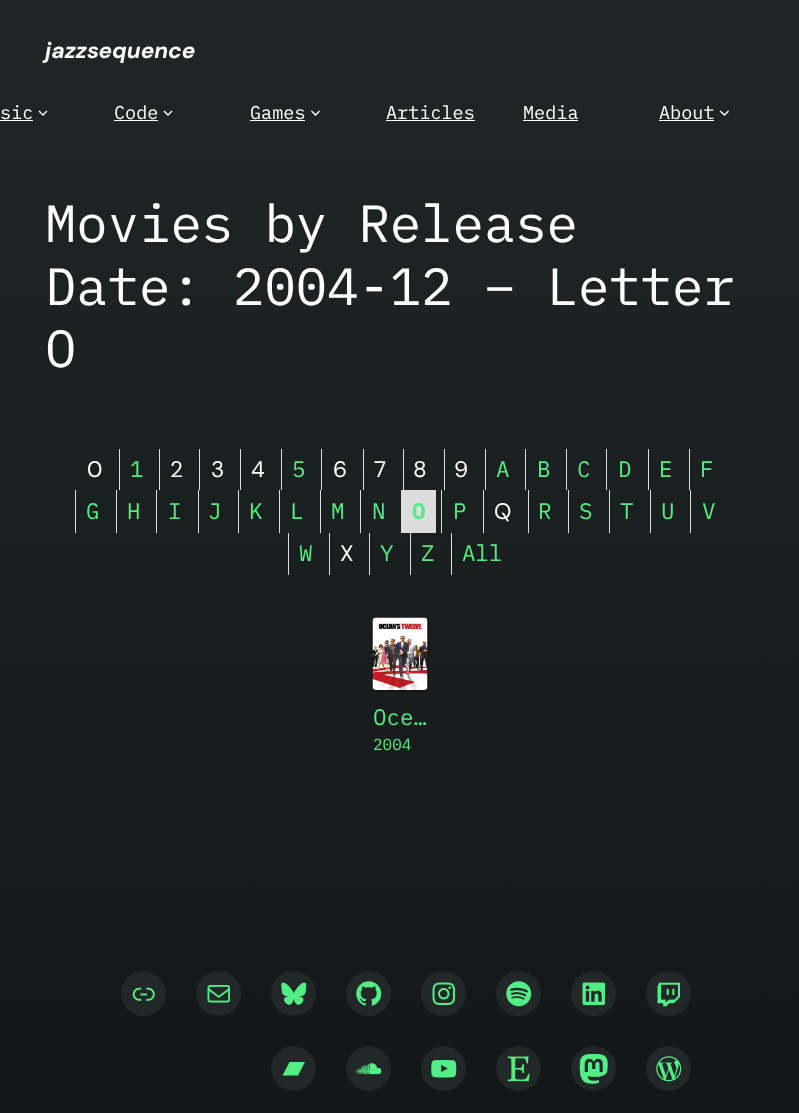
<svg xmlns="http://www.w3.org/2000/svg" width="799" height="1113">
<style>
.a{font:italic bold 22.5px DM Sans;fill:#fff}
.b{font:18.5px IBM Plex Mono;fill:#fff}
.c{font:52.25px IBM Plex Mono;fill:#fff}
.d{font:22.5px DM Sans;fill:#fff}
.e{font:22.5px IBM Plex Mono;fill:#53ed85}
.f{font:bold 22.5px IBM Plex Mono;fill:#53ed85}
.g{font:16px IBM Plex Mono;fill:#53ed85}
</style>
<defs>
<linearGradient id="g1" gradientUnits="userSpaceOnUse" x1="400" y1="0" x2="400" y2="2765"><stop offset="0" stop-color="#202626"/><stop offset="1" stop-color="#010101"/></linearGradient>
</defs>
<rect width="100%" height="100%" fill="#fff"/>
<path fill="url(#g1)" d="M0 0h799v1113H0z"/>
<path fill="#fff" d="M0 120h33v1H0z"/>
<path fill="none" stroke="#fff" stroke-width="1.4" d="M39 111l4 4l4-4"/>
<path fill="#fff" d="M114 120h44v1H114z"/>
<path fill="none" stroke="#fff" stroke-width="1.4" d="M164 111l4 4l4-4"/>
<path fill="#fff" d="M250 120h55v1H250z"/>
<path fill="none" stroke="#fff" stroke-width="1.4" d="M311.5 111l4 4l4-4"/>
<path fill="#fff" d="M386 120h89v1H386z"/>
<path fill="#fff" d="M523 120h55v1H523z"/>
<path fill="#fff" d="M659 120h55v1H659z"/>
<path fill="none" stroke="#fff" stroke-width="1.4" d="M720 111l4.5 4l4-4"/>
<path fill="#ddd" d="M119 449h1v41H119z"/>
<path fill="#ddd" d="M159 449h1v41H159z"/>
<path fill="#ddd" d="M199 449h1v41H199z"/>
<path fill="#ddd" d="M240 449h1v41H240z"/>
<path fill="#ddd" d="M281 449h1v41H281z"/>
<path fill="#ddd" d="M321 449h1v41H321z"/>
<path fill="#ddd" d="M363 449h1v41H363z"/>
<path fill="#ddd" d="M403 449h1v41H403z"/>
<path fill="#ddd" d="M444 449h1v41H444z"/>
<path fill="#ddd" d="M485 449h1v41H485z"/>
<path fill="#ddd" d="M525 449h1v41H525z"/>
<path fill="#ddd" d="M566 449h1v41H566z"/>
<path fill="#ddd" d="M606 449h1v41H606z"/>
<path fill="#ddd" d="M648 449h1v41H648z"/>
<path fill="#ddd" d="M689 449h1v41H689z"/>
<path fill="#ddd" d="M75 490h1v43H75z"/>
<path fill="#ddd" d="M116 490h1v43H116z"/>
<path fill="#ddd" d="M156 490h1v43H156z"/>
<path fill="#ddd" d="M198 490h1v43H198z"/>
<path fill="#ddd" d="M238 490h1v43H238z"/>
<path fill="#ddd" d="M279 490h1v43H279z"/>
<path fill="#ddd" d="M320 490h1v43H320z"/>
<path fill="#ddd" d="M360 490h1v43H360z"/>
<path fill="#ddd" d="M401 490h35v43H401z"/>
<path fill="#ddd" d="M441 490h1v43H441z"/>
<path fill="#ddd" d="M483 490h1v43H483z"/>
<path fill="#ddd" d="M528 490h1v43H528z"/>
<path fill="#ddd" d="M568 490h1v43H568z"/>
<path fill="#ddd" d="M609 490h1v43H609z"/>
<path fill="#ddd" d="M650 490h1v43H650z"/>
<path fill="#ddd" d="M690 490h1v43H690z"/>
<path fill="#ddd" d="M288 533h1v42H288z"/>
<path fill="#ddd" d="M329 533h1v42H329z"/>
<path fill="#ddd" d="M369 533h1v42H369z"/>
<path fill="#ddd" d="M410 533h1v42H410z"/>
<path fill="#ddd" d="M451 533h1v42H451z"/>
<rect fill="#00000080" filter="blur(1px)" x="373" y="619" width="55" height="72" rx="4"/>
<image href="1.png" x="372" y="617" width="56" height="73"/>
<circle fill="#222828" cx="143.5" cy="993.5" r="22.5"/>
<image href="2.png" x="132" y="987" width="23" height="14"/>
<circle fill="#222828" cx="218.5" cy="993.5" r="22.5"/>
<image href="3.png" x="207" y="985" width="23" height="18"/>
<circle fill="#222828" cx="293.5" cy="993.5" r="22.5"/>
<image href="4.png" x="281" y="982" width="26" height="23"/>
<circle fill="#222828" cx="368.5" cy="993.5" r="22.5"/>
<image href="5.png" x="356" y="981" width="26" height="25"/>
<circle fill="#222828" cx="443.5" cy="993.5" r="22.5"/>
<image href="6.png" x="432" y="982" width="23" height="23"/>
<circle fill="#222828" cx="518.5" cy="993.5" r="22.5"/>
<image href="7.png" x="506" y="981" width="26" height="26"/>
<circle fill="#222828" cx="593.5" cy="993.5" r="22.5"/>
<image href="8.png" x="582" y="982" width="23" height="23"/>
<circle fill="#222828" cx="668.5" cy="993.5" r="22.5"/>
<image href="9.png" x="657" y="982" width="23" height="25"/>
<circle fill="#222828" cx="293.5" cy="1068.5" r="22.5"/>
<path fill="#53ed85" d="M298 1075.5h-15.5l7-13.5h15.5l-7 13.5"/>
<circle fill="#222828" cx="368.5" cy="1068.5" r="22.5"/>
<image href="10.png" x="356" y="1063" width="26" height="12"/>
<circle fill="#222828" cx="443.5" cy="1068.5" r="22.5"/>
<image href="11.png" x="431" y="1059" width="26" height="19"/>
<circle fill="#222828" cx="518.5" cy="1068.5" r="22.5"/>
<image href="12.png" x="507" y="1056" width="23" height="26"/>
<circle fill="#222828" cx="593.5" cy="1068.5" r="22.5"/>
<image href="13.png" x="579" y="1054" width="29" height="30"/>
<circle fill="#222828" cx="668.5" cy="1068.5" r="22.5"/>
<image href="14.png" x="656" y="1056" width="26" height="26"/>
<text class="a" x="45" y="58">jazzsequence</text>
<text class="b" x="0" y="119">sic</text>
<text class="b" x="114" y="119">Code</text>
<text class="b" x="250" y="119">Games</text>
<text class="b" x="386" y="119">Articles</text>
<text class="b" x="523" y="119">Media</text>
<text class="b" x="659" y="119">About</text>
<text class="c" x="45" y="242">Movies by Release</text>
<text class="c" x="45" y="305">Date: 2004-12 − Letter</text>
<text class="c" x="45" y="367">O</text>
<text class="d" x="87" y="477">0</text>
<text class="e" x="130" y="477">1</text>
<text class="d" x="170" y="477">2</text>
<text class="d" x="211" y="477">3</text>
<text class="d" x="251" y="477">4</text>
<text class="e" x="292" y="477">5</text>
<text class="d" x="333" y="477">6</text>
<text class="d" x="374" y="477">7</text>
<text class="d" x="413" y="477">8</text>
<text class="d" x="454" y="477">9</text>
<text class="e" x="496" y="477">A</text>
<text class="e" x="537" y="477">B</text>
<text class="e" x="577" y="477">C</text>
<text class="e" x="618" y="477">D</text>
<text class="e" x="659" y="477">E</text>
<text class="e" x="700" y="477">F</text>
<text class="e" x="86" y="519">G</text>
<text class="e" x="127" y="519">H</text>
<text class="e" x="168" y="519">I</text>
<text class="e" x="208" y="519">J</text>
<text class="e" x="249" y="519">K</text>
<text class="e" x="290" y="519">L</text>
<text class="e" x="331" y="519">M</text>
<text class="e" x="372" y="519">N</text>
<text class="f" x="412" y="519">O</text>
<text class="e" x="453" y="519">P</text>
<text class="d" x="494" y="519">Q</text>
<text class="e" x="538" y="519">R</text>
<text class="e" x="579" y="519">S</text>
<text class="e" x="620" y="519">T</text>
<text class="e" x="661" y="519">U</text>
<text class="e" x="702" y="519">V</text>
<text class="e" x="299" y="561">W</text>
<text class="d" x="340" y="561">X</text>
<text class="e" x="380" y="561">Y</text>
<text class="e" x="421" y="561">Z</text>
<text class="e" x="462" y="561">All</text>
<text class="e" x="373" y="725">Oce…</text>
<text class="g" x="373" y="750">2004</text>
</svg>
